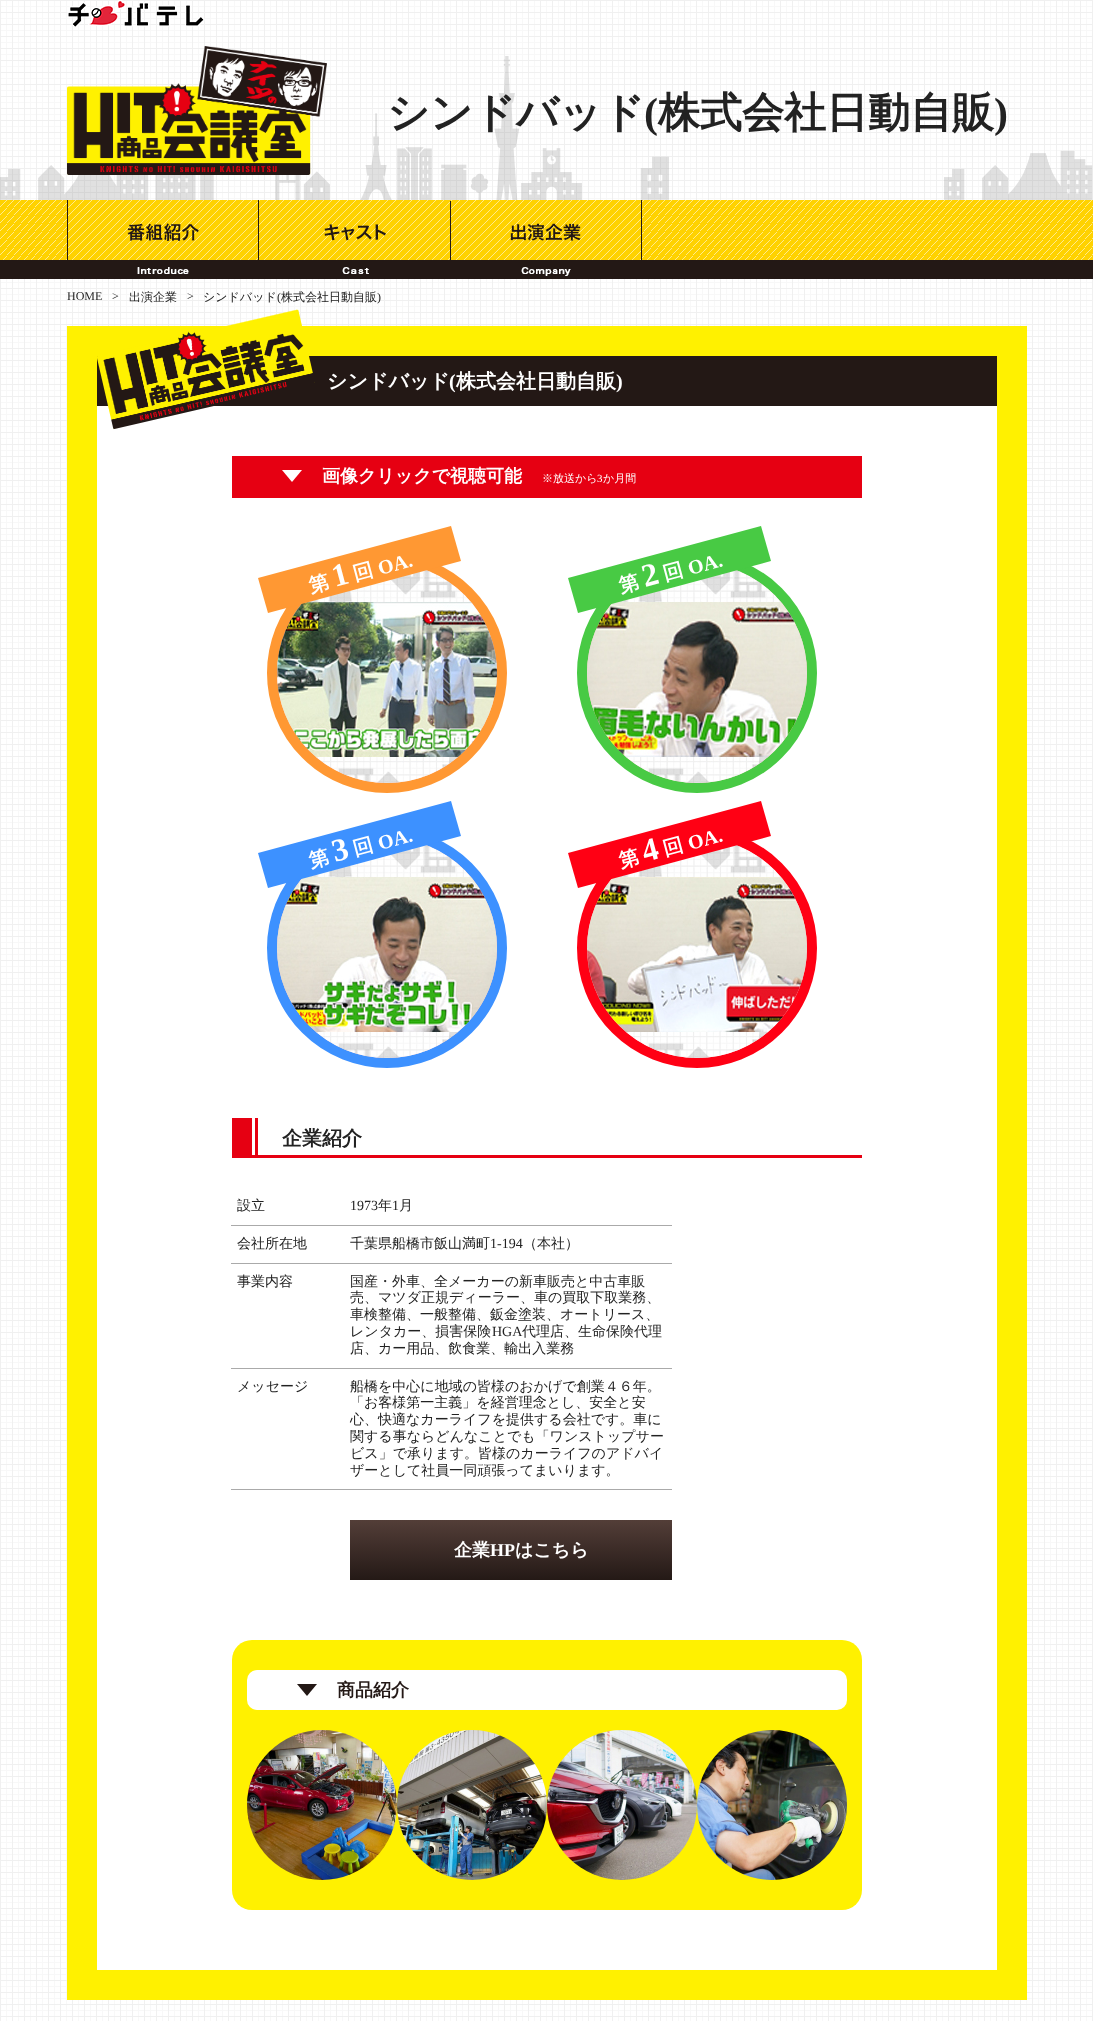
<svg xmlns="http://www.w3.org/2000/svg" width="1093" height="2021">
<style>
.a{font:bold 42px WenQuanYi Zen Hei;fill:#222}
.b{font:bold 42px Liberation Serif;fill:#222}
.c{font:12px Liberation Serif;fill:#222}
.d{font:500 12px WenQuanYi Zen Hei;fill:#222}
.e{font:bold 20px WenQuanYi Zen Hei;fill:#fff}
.f{font:bold 20px Liberation Serif;fill:#fff}
.g{font:bold 18px WenQuanYi Zen Hei;fill:#fff}
.h{font:500 11px WenQuanYi Zen Hei;fill:#fff}
.i{font:11px Liberation Serif;fill:#fff}
.j{font:bold 32px Liberation Serif;fill:#fff}
.k{font:bold 20px WenQuanYi Zen Hei;fill:#222}
.l{font:500 14px WenQuanYi Zen Hei;fill:#222}
.m{font:14px Liberation Serif;fill:#222}
.n{font:bold 18px Liberation Serif;fill:#fff}
.o{font:bold 18px WenQuanYi Zen Hei;fill:#231815}
</style>
<defs>
<linearGradient id="g1" gradientUnits="userSpaceOnUse" x1="511" y1="1520" x2="511" y2="1580"><stop offset="0" stop-color="#533e38"/><stop offset="1" stop-color="#241916"/></linearGradient>
</defs>
<rect width="100%" height="100%" fill="#fff"/>
<image href="1.png" x="0" y="0" width="1093" height="2021"/>
<image href="2.png" x="0" y="56" width="1093" height="144"/>
<image href="3.png" x="67" y="0" width="138" height="27"/>
<image href="4.png" x="67" y="46" width="260" height="129"/>
<image href="5.png" x="0" y="200" width="1093" height="79"/>
<image href="6.png" x="67" y="200" width="192" height="74"/>
<image href="7.png" x="259" y="200" width="192" height="74"/>
<image href="8.png" x="451" y="200" width="191" height="76"/>
<path fill="#fff100" d="M67 326h960v1674H67z"/>
<path fill="#fff" d="M97 406h900v1564H97z"/>
<path fill="#231815" d="M97 356h900v50H97z"/>
<image href="9.png" x="97" y="309" width="218" height="121"/>
<path fill="#e60012" d="M232 456h630v42H232z"/>
<path fill="#fff" d="M282 470h20l-10 12z"/>
<circle fill="#fcc" stroke="#ff9833" stroke-width="10" cx="387" cy="673" r="115"/>
<image href="10.png" x="277" y="570" width="220" height="213"/>
<path fill="#ff9833" d="M258 578l193-52l10 35l-193 52z"/>
<circle fill="#fcc" stroke="#48ca44" stroke-width="10" cx="697" cy="673" r="115"/>
<image href="11.png" x="587" y="570" width="220" height="213"/>
<path fill="#48ca44" d="M568 578l193-52l10 35l-193 52z"/>
<circle fill="#fcc" stroke="#3d91ff" stroke-width="10" cx="387" cy="948" r="115"/>
<image href="12.png" x="277" y="845" width="220" height="213"/>
<path fill="#3d91ff" d="M258 853l193-52l10 35l-193 52z"/>
<circle fill="#fcc" stroke="#ff0014" stroke-width="10" cx="697" cy="948" r="115"/>
<image href="13.png" x="587" y="845" width="220" height="213"/>
<path fill="#ff0014" d="M568 853l193-52l10 35l-193 52z"/>
<path fill="#e60012" d="M252 1155h610v3H252z"/>
<path fill="#e60012" d="M232 1118h20v40H232z"/>
<path fill="#e60012" d="M255 1118h3v37H255z"/>
<path fill="#aaa" d="M231 1225h441v1H231z"/>
<path fill="#aaa" d="M231 1263h441v1H231z"/>
<path fill="#aaa" d="M231 1368h441v1H231z"/>
<path fill="#aaa" d="M231 1489h441v1H231z"/>
<path fill="url(#g1)" d="M350 1520h322v60H350z"/>
<rect fill="#fff100" x="232" y="1640" width="630" height="270" rx="20"/>
<rect fill="#fff" x="247" y="1670" width="600" height="40" rx="10"/>
<path fill="#231815" d="M297 1684h20l-10 12z"/>
<image href="14.png" x="247" y="1730" width="150" height="150"/>
<image href="15.png" x="397" y="1730" width="150" height="150"/>
<image href="16.png" x="547" y="1730" width="150" height="150"/>
<image href="17.png" x="697" y="1730" width="150" height="150"/>
<text class="a" x="387" y="127">シンドバッド</text>
<text class="b" x="644" y="127">(</text>
<text class="a" x="658" y="127">株式会社日動自販</text>
<text class="b" x="994" y="127">)</text>
<text class="c" x="67" y="300">HOME</text>
<text class="c" x="112" y="300">&gt;</text>
<text class="d" x="129" y="301">出演企業</text>
<text class="c" x="187" y="300">&gt;</text>
<text class="d" x="203" y="301">シンドバッド</text>
<text class="c" x="277" y="301">(</text>
<text class="d" x="281" y="301">株式会社日動自販</text>
<text class="c" x="377" y="301">)</text>
<text class="e" x="327" y="388">シンドバッド</text>
<text class="f" x="449" y="388">(</text>
<text class="e" x="456" y="388">株式会社日動自販</text>
<text class="f" x="616" y="388">)</text>
<text class="g" x="322" y="482">画像クリックで視聴可能</text>
<text class="h" x="542" y="482">※放送から</text>
<text class="i" x="597" y="482">3</text>
<text class="h" x="603" y="482">か月間</text>
<text class="e" x="311" y="593" transform="rotate(-15 311 593)">第</text>
<text class="j" x="335" y="587" transform="rotate(-15 335 587)">1</text>
<text class="e" x="355" y="581" transform="rotate(-15 355 581)">回</text>
<text class="f" x="380" y="575" transform="rotate(-15 380 575)">OA.</text>
<text class="e" x="621" y="593" transform="rotate(-15 621 593)">第</text>
<text class="j" x="645" y="587" transform="rotate(-15 645 587)">2</text>
<text class="e" x="665" y="581" transform="rotate(-15 665 581)">回</text>
<text class="f" x="690" y="575" transform="rotate(-15 690 575)">OA.</text>
<text class="e" x="311" y="868" transform="rotate(-15 311 868)">第</text>
<text class="j" x="335" y="862" transform="rotate(-15 335 862)">3</text>
<text class="e" x="355" y="856" transform="rotate(-15 355 856)">回</text>
<text class="f" x="380" y="850" transform="rotate(-15 380 850)">OA.</text>
<text class="e" x="621" y="868" transform="rotate(-15 621 868)">第</text>
<text class="j" x="645" y="862" transform="rotate(-15 645 862)">4</text>
<text class="e" x="665" y="856" transform="rotate(-15 665 856)">回</text>
<text class="f" x="690" y="850" transform="rotate(-15 690 850)">OA.</text>
<text class="k" x="282" y="1145">企業紹介</text>
<text class="l" x="237" y="1210">設立</text>
<text class="m" x="350" y="1210">1973</text>
<text class="l" x="378" y="1210">年</text>
<text class="m" x="392" y="1210">1</text>
<text class="l" x="399" y="1210">月</text>
<text class="l" x="237" y="1248">会社所在地</text>
<text class="l" x="350" y="1248">千葉県船橋市飯山満町</text>
<text class="m" x="490" y="1248">1-194</text>
<text class="l" x="523" y="1248">（本社）</text>
<text class="l" x="237" y="1286">事業内容</text>
<text class="l" x="350" y="1286">国産・外車、全メーカーの新車販売と中古車販</text>
<text class="l" x="350" y="1302">売、マツダ正規ディーラー、車の買取下取業務、</text>
<text class="l" x="350" y="1319">車検整備、一般整備、鈑金塗装、オートリース、</text>
<text class="l" x="350" y="1336">レンタカー、損害保険</text>
<text class="m" x="492" y="1336">HGA</text>
<text class="l" x="522" y="1336">代理店、生命保険代理</text>
<text class="l" x="350" y="1353">店、カー用品、飲食業、輸出入業務</text>
<text class="l" x="237" y="1391">メッセージ</text>
<text class="l" x="350" y="1391">船橋を中心に地域の皆様のおかげで創業４６年。</text>
<text class="l" x="350" y="1407">「お客様第一主義」を経営理念とし、安全と安</text>
<text class="l" x="350" y="1424">心、快適なカーライフを提供する会社です。車に</text>
<text class="l" x="350" y="1441">関する事ならどんなことでも「ワンストップサー</text>
<text class="l" x="350" y="1458">ビス」で承ります。皆様のカーライフのアドバイ</text>
<text class="l" x="350" y="1475">ザーとして社員一同頑張ってまいります。</text>
<text class="g" x="454" y="1556">企業</text>
<text class="n" x="490" y="1556">HP</text>
<text class="g" x="515" y="1556">はこちら</text>
<text class="o" x="337" y="1696">商品紹介</text>
</svg>
